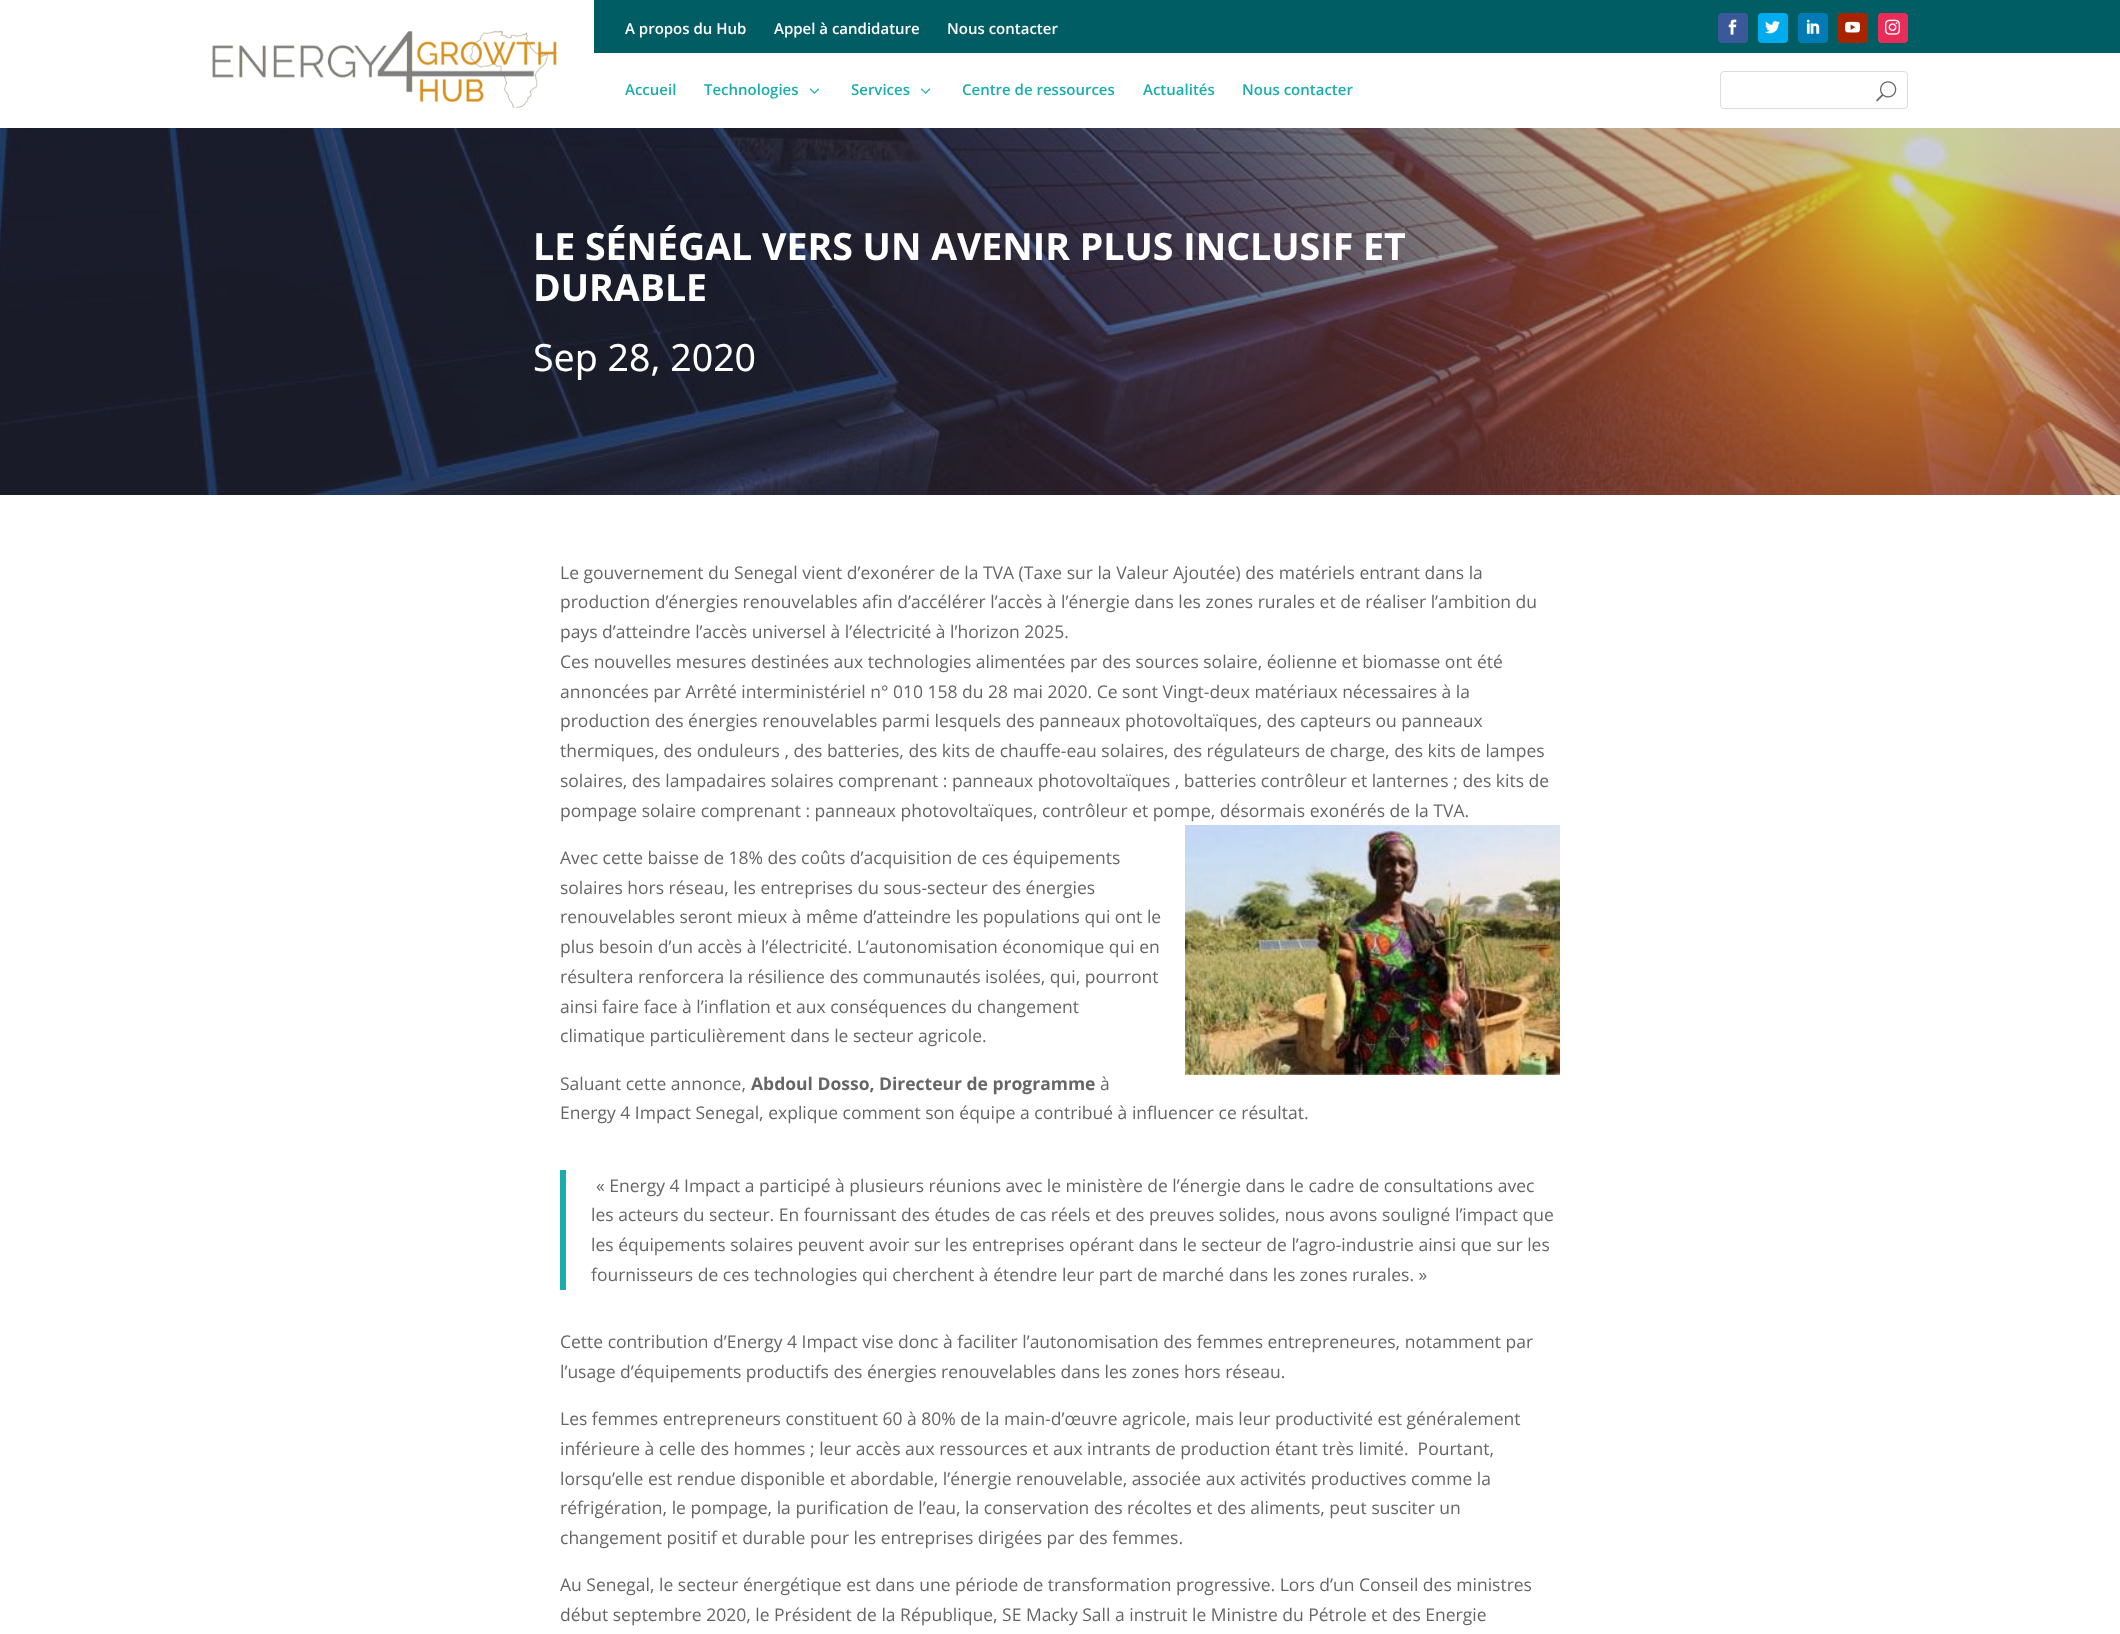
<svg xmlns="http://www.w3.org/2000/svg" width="2120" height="1634">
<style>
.a{font:600 15px Open Sans;fill:#fff}
.b{font:600 15px Open Sans;fill:#1badac}
.c{font:bold 37.5px Open Sans;fill:#fff}
.d{font:37.5px Noto Sans;fill:#fff}
.e{font:17.5px Open Sans;fill:#666}
.f{font:bold 17.5px Open Sans;fill:#666}
</style>
<rect width="100%" height="100%" fill="#fff"/>
<image href="1.png" x="212" y="31" width="345" height="77"/>
<path fill="#015d64" d="M594 0h1526v53H594z"/>
<rect fill="#3b5998" x="1718" y="13" width="30" height="30" rx="4"/>
<image href="2.png" x="1728" y="19" width="9" height="16"/>
<rect fill="#00aced" x="1758" y="13" width="30" height="30" rx="4"/>
<image href="3.png" x="1765" y="21" width="15" height="13"/>
<rect fill="#007bb6" x="1798" y="13" width="30" height="30" rx="4"/>
<image href="4.png" x="1806" y="19" width="14" height="15"/>
<rect fill="#a82400" x="1838" y="13" width="30" height="30" rx="4"/>
<image href="5.png" x="1845" y="21" width="15" height="12"/>
<rect fill="#ea2c59" x="1878" y="13" width="30" height="30" rx="4"/>
<image href="6.png" x="1885" y="19" width="15" height="16"/>
<image href="7.png" x="809" y="88" width="10" height="6"/>
<image href="8.png" x="921" y="88" width="10" height="6"/>
<rect fill="none" stroke="#ddd" x="1720.5" y="71.5" width="187" height="37" rx="3.5"/>
<image href="9.png" x="1876" y="81" width="21" height="21"/>
<image href="10.png" x="0" y="128" width="2120" height="367"/>
<image href="11.png" x="1185" y="825" width="375" height="250"/>
<path fill="#1badac" d="M560 1170h6v120H560z"/>
<text class="a" x="625" y="34">A propos du Hub</text>
<text class="a" x="774" y="34">Appel à candidature</text>
<text class="a" x="947" y="34">Nous contacter</text>
<text class="b" x="625" y="95">Accueil</text>
<text class="b" x="704" y="95">Technologies</text>
<text class="b" x="851" y="95">Services</text>
<text class="b" x="962" y="95">Centre de ressources</text>
<text class="b" x="1143" y="95">Actualités</text>
<text class="b" x="1242" y="95">Nous contacter</text>
<text class="c" x="533" y="260">LE SÉNÉGAL VERS UN AVENIR PLUS INCLUSIF ET</text>
<text class="c" x="533" y="301">DURABLE</text>
<text class="d" x="533" y="371">Sep 28, 2020</text>
<text class="e" x="560" y="579">Le gouvernement du Senegal vient d’exonérer de la TVA (Taxe sur la Valeur Ajoutée) des matériels entrant dans la</text>
<text class="e" x="560" y="608">production d’énergies renouvelables afin d’accélérer l’accès à l’énergie dans les zones rurales et de réaliser l’ambition du</text>
<text class="e" x="560" y="638">pays d’atteindre l’accès universel à l’électricité à l’horizon 2025.</text>
<text class="e" x="560" y="668">Ces nouvelles mesures destinées aux technologies alimentées par des sources solaire, éolienne et biomasse ont été</text>
<text class="e" x="560" y="698">annoncées par Arrêté interministériel n° 010 158 du 28 mai 2020. Ce sont Vingt-deux matériaux nécessaires à la</text>
<text class="e" x="560" y="727">production des énergies renouvelables parmi lesquels des panneaux photovoltaïques, des capteurs ou panneaux</text>
<text class="e" x="560" y="757">thermiques, des onduleurs , des batteries, des kits de chauffe-eau solaires, des régulateurs de charge, des kits de lampes</text>
<text class="e" x="560" y="787">solaires, des lampadaires solaires comprenant : panneaux photovoltaïques , batteries contrôleur et lanternes ; des kits de</text>
<text class="e" x="560" y="817">pompage solaire comprenant : panneaux photovoltaïques, contrôleur et pompe, désormais exonérés de la TVA.</text>
<text class="e" x="560" y="864">Avec cette baisse de 18% des coûts d’acquisition de ces équipements</text>
<text class="e" x="560" y="894">solaires hors réseau, les entreprises du sous-secteur des énergies</text>
<text class="e" x="560" y="923">renouvelables seront mieux à même d’atteindre les populations qui ont le</text>
<text class="e" x="560" y="953">plus besoin d’un accès à l’électricité. L’autonomisation économique qui en</text>
<text class="e" x="560" y="983">résultera renforcera la résilience des communautés isolées, qui, pourront</text>
<text class="e" x="560" y="1013">ainsi faire face à l’inflation et aux conséquences du changement</text>
<text class="e" x="560" y="1042">climatique particulièrement dans le secteur agricole.</text>
<text class="e" x="560" y="1090">Saluant cette annonce,</text>
<text class="f" x="751" y="1090">Abdoul Dosso, Directeur de programme</text>
<text class="e" x="1100" y="1090">à</text>
<text class="e" x="560" y="1119">Energy 4 Impact Senegal, explique comment son équipe a contribué à influencer ce résultat.</text>
<text class="e" x="596" y="1192">« Energy 4 Impact a participé à plusieurs réunions avec le ministère de l’énergie dans le cadre de consultations avec</text>
<text class="e" x="591" y="1221">les acteurs du secteur. En fournissant des études de cas réels et des preuves solides, nous avons souligné l’impact que</text>
<text class="e" x="591" y="1251">les équipements solaires peuvent avoir sur les entreprises opérant dans le secteur de l’agro-industrie ainsi que sur les</text>
<text class="e" x="591" y="1281">fournisseurs de ces technologies qui cherchent à étendre leur part de marché dans les zones rurales. »</text>
<text class="e" x="560" y="1348">Cette contribution d’Energy 4 Impact vise donc à faciliter l’autonomisation des femmes entrepreneures, notamment par</text>
<text class="e" x="560" y="1378">l’usage d’équipements productifs des énergies renouvelables dans les zones hors réseau.</text>
<text class="e" x="560" y="1425">Les femmes entrepreneurs constituent 60 à 80% de la main-d’œuvre agricole, mais leur productivité est généralement</text>
<text class="e" xml:space="preserve" x="560" y="1455">inférieure à celle des hommes ; leur accès aux ressources et aux intrants de production étant très limité.  Pourtant,</text>
<text class="e" x="560" y="1485">lorsqu’elle est rendue disponible et abordable, l’énergie renouvelable, associée aux activités productives comme la</text>
<text class="e" x="560" y="1514">réfrigération, le pompage, la purification de l’eau, la conservation des récoltes et des aliments, peut susciter un</text>
<text class="e" x="560" y="1544">changement positif et durable pour les entreprises dirigées par des femmes.</text>
<text class="e" x="560" y="1591">Au Senegal, le secteur énergétique est dans une période de transformation progressive. Lors d’un Conseil des ministres</text>
<text class="e" x="560" y="1621">début septembre 2020, le Président de la République, SE Macky Sall a instruit le Ministre du Pétrole et des Energie</text>
</svg>
